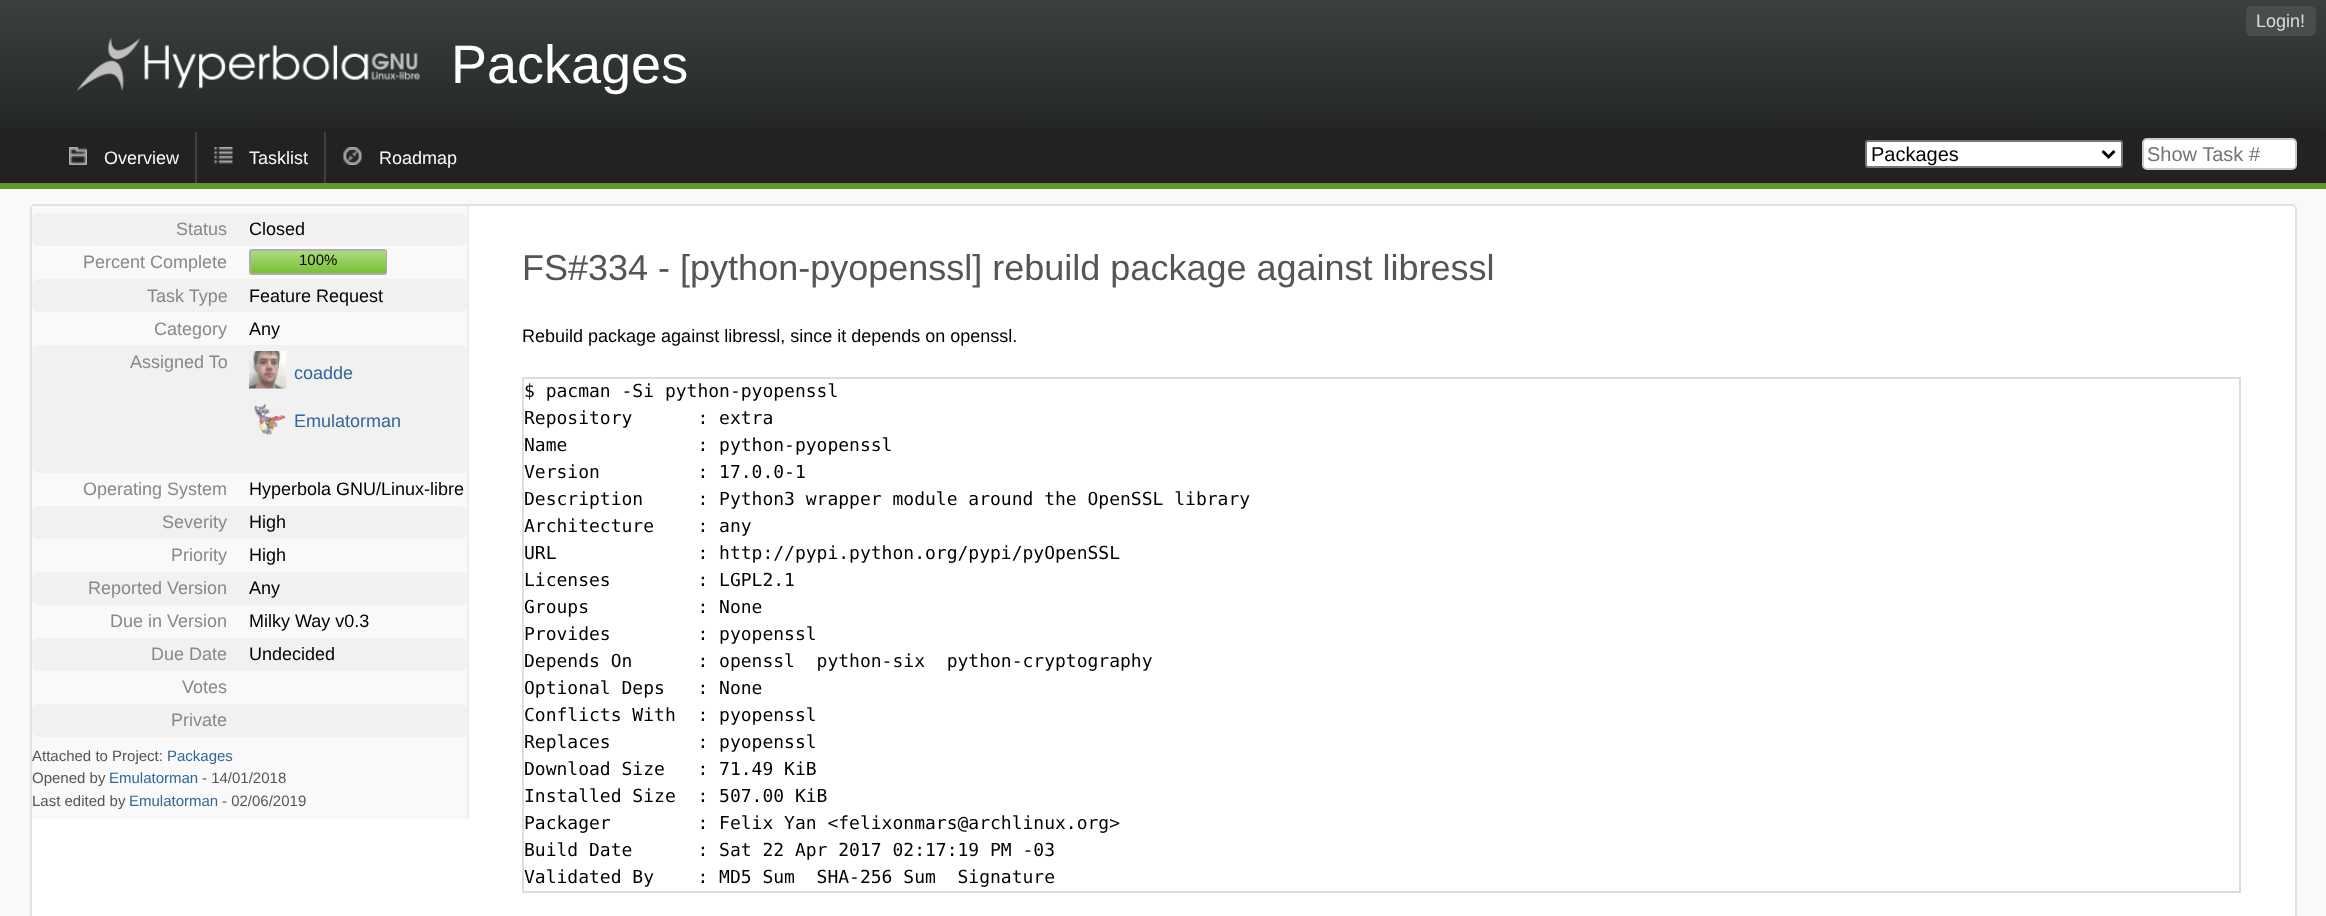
<svg xmlns="http://www.w3.org/2000/svg" width="2326" height="916">
<style>
.a{font:18px Liberation Sans;fill:#ddd}
.b{font:54px Liberation Sans;fill:#fff}
.c{font:18px Liberation Sans;fill:#f9f9f9}
.d{font:20px Liberation Sans;fill:#000}
.e{font:20px Liberation Sans;fill:#757575}
.f{font:18px Liberation Sans;fill:#888}
.g{font:18px Liberation Sans;fill:#000}
.h{font:15px Liberation Sans;fill:#000}
.i{font:18px Liberation Sans;fill:#369}
.j{font:15px Liberation Sans;fill:#555}
.k{font:15px Liberation Sans;fill:#369}
.l{font:36px Liberation Sans;fill:#555}
.m{font:18px DejaVu Sans Mono;fill:#000}
</style>
<defs>
<linearGradient id="g1" gradientUnits="userSpaceOnUse" x1="1163" y1="0" x2="1163" y2="129"><stop offset="0" stop-color="#3c4041"/><stop offset="1" stop-color="#242627"/></linearGradient>
<linearGradient id="g2" gradientUnits="userSpaceOnUse" x1="318" y1="251" x2="318" y2="273"><stop offset="0" stop-color="#acdc7d"/><stop offset="1" stop-color="#78bf34"/></linearGradient>
</defs>
<rect width="100%" height="100%" fill="#f9f9f9"/>
<path fill="url(#g1)" d="M0 0h2326v129H0z"/>
<rect fill="#494d4e" x="2246" y="6" width="70" height="30" rx="5"/>
<image href="1.png" x="76" y="37" width="344" height="54"/>
<path fill="#222" d="M0 129h2326v54H0z"/>
<path fill="#5f9729" d="M0 183h2326v6H0z"/>
<image href="2.png" x="69" y="147" width="18" height="18"/>
<image href="3.png" x="214" y="147" width="19" height="17"/>
<path fill="#3c4041" d="M195 132h2v51H195z"/>
<image href="4.png" x="343" y="147" width="19" height="18"/>
<path fill="#3c4041" d="M324 132h2v51H324z"/>
<rect fill="#fff" stroke="#767676" stroke-width="2" x="1866" y="141" width="256" height="26" rx="2"/>
<path fill="none" stroke="#000" stroke-width="3" d="M2102.5 151l6 6l6-6"/>
<rect fill="#fff" stroke="#ccc" stroke-width="2" x="2143" y="139" width="153" height="30" rx="4"/>
<rect fill="#fff" stroke="#e1e1e1" stroke-width="2" x="31" y="205" width="2265" height="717" rx="4"/>
<path fill="#f9f9f9" d="M32 206h435v613H32z"/>
<path fill="#eee" d="M467 206h2v613H467z"/>
<rect fill="#f1f1f1" x="32" y="213" width="435" height="33" rx="6"/>
<rect fill="none" stroke="#aeaeae" stroke-width="2" x="250" y="250" width="136" height="24" rx="2"/>
<path fill="url(#g2)" d="M251 251h135v22H251z"/>
<rect fill="#f1f1f1" x="32" y="279" width="435" height="33" rx="6"/>
<rect fill="#f1f1f1" x="32" y="345" width="435" height="128" rx="6"/>
<image href="5.png" x="249" y="351" width="38" height="38"/>
<image href="6.png" x="254" y="403" width="32" height="32"/>
<rect fill="#f1f1f1" x="32" y="506" width="435" height="33" rx="6"/>
<rect fill="#f1f1f1" x="32" y="572" width="435" height="33" rx="6"/>
<rect fill="#f1f1f1" x="32" y="638" width="435" height="33" rx="6"/>
<rect fill="#f1f1f1" x="32" y="704" width="435" height="33" rx="6"/>
<path fill="none" stroke="#ddd" stroke-width="2" d="M523 378h1717v514H523z"/>
<text class="a" x="2256" y="27">Login!</text>
<text class="b" x="451" y="83">Packages</text>
<text class="c" x="104" y="164">Overview</text>
<text class="c" x="249" y="164">Tasklist</text>
<text class="c" x="379" y="164">Roadmap</text>
<text class="d" x="1871" y="161">Packages</text>
<text class="e" x="2147" y="161">Show Task #</text>
<text class="f" x="176" y="235">Status</text>
<text class="g" x="249" y="235">Closed</text>
<text class="f" x="83" y="268">Percent Complete</text>
<text class="h" x="299" y="265">100%</text>
<text class="f" x="147" y="302">Task Type</text>
<text class="g" x="249" y="302">Feature Request</text>
<text class="f" x="154" y="335">Category</text>
<text class="g" x="249" y="335">Any</text>
<text class="f" x="130" y="368">Assigned To</text>
<text class="i" x="294" y="379">coadde</text>
<text class="i" x="294" y="427">Emulatorman</text>
<text class="f" x="83" y="495">Operating System</text>
<text class="g" x="249" y="495">Hyperbola GNU/Linux-libre</text>
<text class="f" x="162" y="528">Severity</text>
<text class="g" x="249" y="528">High</text>
<text class="f" x="171" y="561">Priority</text>
<text class="g" x="249" y="561">High</text>
<text class="f" x="88" y="594">Reported Version</text>
<text class="g" x="249" y="594">Any</text>
<text class="f" x="110" y="627">Due in Version</text>
<text class="g" x="249" y="627">Milky Way v0.3</text>
<text class="f" x="151" y="660">Due Date</text>
<text class="g" x="249" y="660">Undecided</text>
<text class="f" x="182" y="693">Votes</text>
<text class="f" x="171" y="726">Private</text>
<text class="j" x="32" y="761">Attached to Project:</text>
<text class="k" x="167" y="761">Packages</text>
<text class="j" x="32" y="783">Opened by</text>
<text class="k" x="109" y="783">Emulatorman</text>
<text class="j" x="202" y="783">- 14/01/2018</text>
<text class="j" x="32" y="806">Last edited by</text>
<text class="k" x="129" y="806">Emulatorman</text>
<text class="j" x="222" y="806">- 02/06/2019</text>
<text class="l" x="522" y="280">FS#334 - [python-pyopenssl] rebuild package against libressl</text>
<text class="g" x="522" y="342">Rebuild package against libressl, since it depends on openssl.</text>
<text class="m" x="524" y="397">$ pacman -Si python-pyopenssl</text>
<text class="m" xml:space="preserve" x="524" y="424">Repository      : extra</text>
<text class="m" xml:space="preserve" x="524" y="451">Name            : python-pyopenssl</text>
<text class="m" xml:space="preserve" x="524" y="478">Version         : 17.0.0-1</text>
<text class="m" xml:space="preserve" x="524" y="505">Description     : Python3 wrapper module around the OpenSSL library</text>
<text class="m" xml:space="preserve" x="524" y="532">Architecture    : any</text>
<text class="m" xml:space="preserve" x="524" y="559">URL             : http://pypi.python.org/pypi/pyOpenSSL</text>
<text class="m" xml:space="preserve" x="524" y="586">Licenses        : LGPL2.1</text>
<text class="m" xml:space="preserve" x="524" y="613">Groups          : None</text>
<text class="m" xml:space="preserve" x="524" y="640">Provides        : pyopenssl</text>
<text class="m" xml:space="preserve" x="524" y="667">Depends On      : openssl  python-six  python-cryptography</text>
<text class="m" xml:space="preserve" x="524" y="694">Optional Deps   : None</text>
<text class="m" xml:space="preserve" x="524" y="721">Conflicts With  : pyopenssl</text>
<text class="m" xml:space="preserve" x="524" y="748">Replaces        : pyopenssl</text>
<text class="m" xml:space="preserve" x="524" y="775">Download Size   : 71.49 KiB</text>
<text class="m" xml:space="preserve" x="524" y="802">Installed Size  : 507.00 KiB</text>
<text class="m" xml:space="preserve" x="524" y="829">Packager        : Felix Yan &lt;felixonmars@archlinux.org&gt;</text>
<text class="m" xml:space="preserve" x="524" y="856">Build Date      : Sat 22 Apr 2017 02:17:19 PM -03</text>
<text class="m" xml:space="preserve" x="524" y="883">Validated By    : MD5 Sum  SHA-256 Sum  Signature</text>
</svg>
